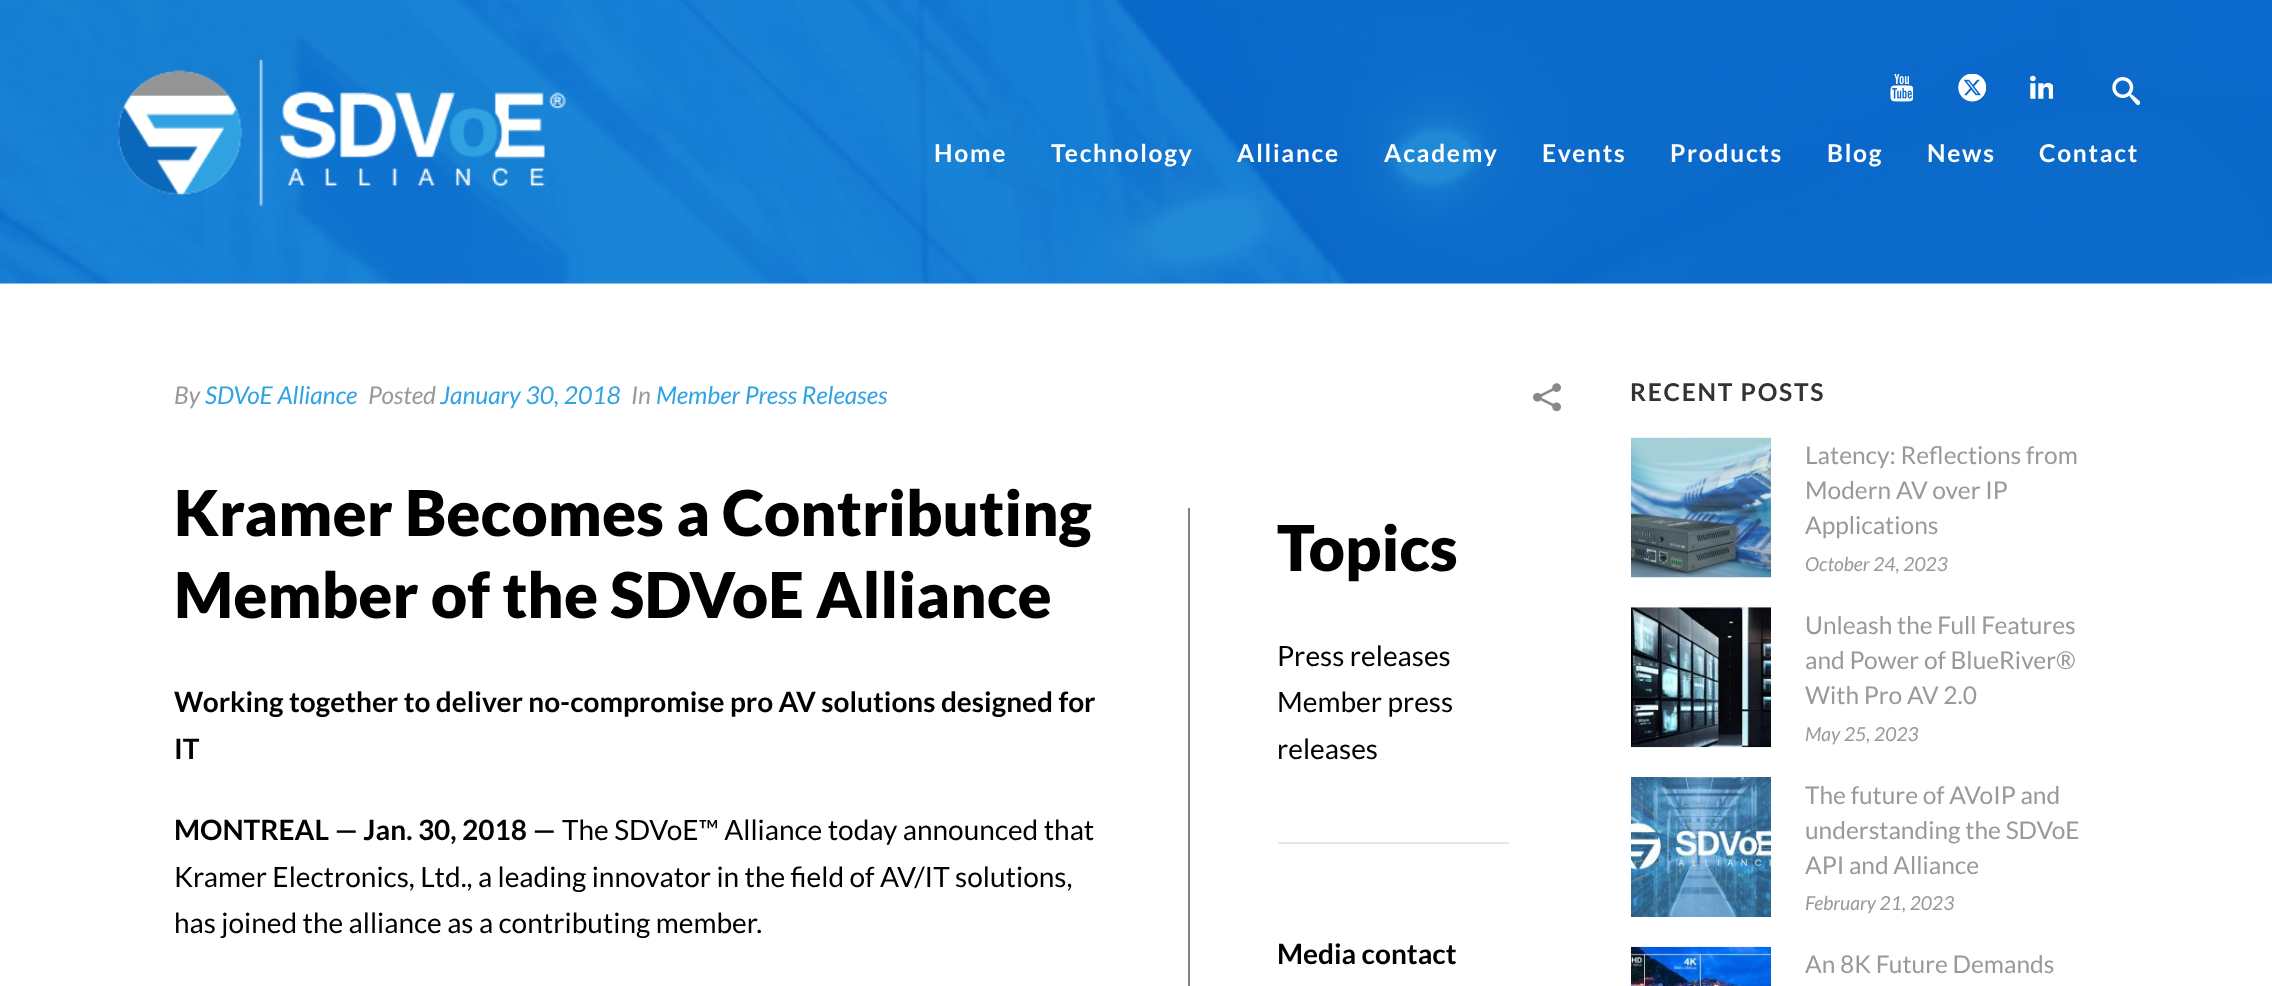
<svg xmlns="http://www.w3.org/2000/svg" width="2272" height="986">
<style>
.a{font:bold 24.5px Lato;letter-spacing:1.75px;fill:#fff}
.b{font:italic 24.5px Lato;fill:#999}
.c{font:italic 24.5px Lato;fill:#31a3e3}
.d{font:900 63px Lato;fill:#000}
.e{font:bold 28px Lato;fill:#000}
.f{font:28px Lato;fill:#000}
.g{font:bold 24.5px Lato;letter-spacing:1.75px;fill:#333}
.h{font:24.5px Lato;fill:#999}
.i{font:italic 19.25px Lato;fill:#999}
</style>
<rect width="100%" height="100%" fill="#fff"/>
<image href="1.png" x="0" y="0" width="2272" height="284"/>
<image href="2.png" x="118" y="59" width="448" height="148"/>
<image href="3.png" x="1890" y="74" width="23" height="28"/>
<image href="4.png" x="1958" y="74" width="28" height="28"/>
<image href="5.png" x="2030" y="75" width="23" height="24"/>
<image href="6.png" x="2112" y="77" width="28" height="28"/>
<image href="7.png" x="1533" y="383" width="28" height="28"/>
<path fill="#808080" d="M1188 508h2v478H1188z"/>
<path fill="#e6e6e6" d="M1278 842h231v2H1278z"/>
<image href="8.png" x="1631" y="437" width="140" height="141"/>
<image href="9.png" x="1631" y="607" width="140" height="141"/>
<image href="10.png" x="1631" y="777" width="140" height="140"/>
<image href="11.png" x="1631" y="946" width="140" height="40"/>
<text class="a" x="934" y="162">Home</text>
<text class="a" x="1051" y="162">Technology</text>
<text class="a" x="1237" y="162">Alliance</text>
<text class="a" x="1384" y="162">Academy</text>
<text class="a" x="1542" y="162">Events</text>
<text class="a" x="1670" y="162">Products</text>
<text class="a" x="1827" y="162">Blog</text>
<text class="a" x="1927" y="162">News</text>
<text class="a" x="2039" y="162">Contact</text>
<text class="b" x="174" y="404">By</text>
<text class="c" x="205" y="404">SDVoE Alliance</text>
<text class="b" x="368" y="404">Posted</text>
<text class="c" x="440" y="404">January 30, 2018</text>
<text class="b" x="631" y="404">In</text>
<text class="c" x="656" y="404">Member Press Releases</text>
<text class="d" x="174" y="536">Kramer Becomes a Contributing</text>
<text class="d" x="174" y="618">Member of the SDVoE Alliance</text>
<text class="e" x="174" y="712">Working together to deliver no-compromise pro AV solutions designed for</text>
<text class="e" x="174" y="759">IT</text>
<text class="e" x="174" y="840">MONTREAL — Jan. 30, 2018 —</text>
<text class="f" x="562" y="840">The SDVoE™ Alliance today announced that</text>
<text class="f" x="174" y="887">Kramer Electronics, Ltd., a leading innovator in the field of AV/IT solutions,</text>
<text class="f" x="174" y="933">has joined the alliance as a contributing member.</text>
<text class="d" x="1277" y="571">Topics</text>
<text class="f" x="1277" y="666">Press releases</text>
<text class="f" x="1277" y="712">Member press</text>
<text class="f" x="1277" y="759">releases</text>
<text class="e" x="1277" y="964">Media contact</text>
<text class="g" x="1630" y="401">RECENT POSTS</text>
<text class="h" x="1805" y="464">Latency: Reflections from</text>
<text class="h" x="1805" y="499">Modern AV over IP</text>
<text class="h" x="1805" y="534">Applications</text>
<text class="i" x="1805" y="571">October 24, 2023</text>
<text class="h" x="1805" y="634">Unleash the Full Features</text>
<text class="h" x="1805" y="669">and Power of BlueRiver®</text>
<text class="h" x="1805" y="704">With Pro AV 2.0</text>
<text class="i" x="1805" y="741">May 25, 2023</text>
<text class="h" x="1805" y="804">The future of AVoIP and</text>
<text class="h" x="1805" y="839">understanding the SDVoE</text>
<text class="h" x="1805" y="874">API and Alliance</text>
<text class="i" x="1805" y="910">February 21, 2023</text>
<text class="h" x="1805" y="973">An 8K Future Demands</text>
</svg>
